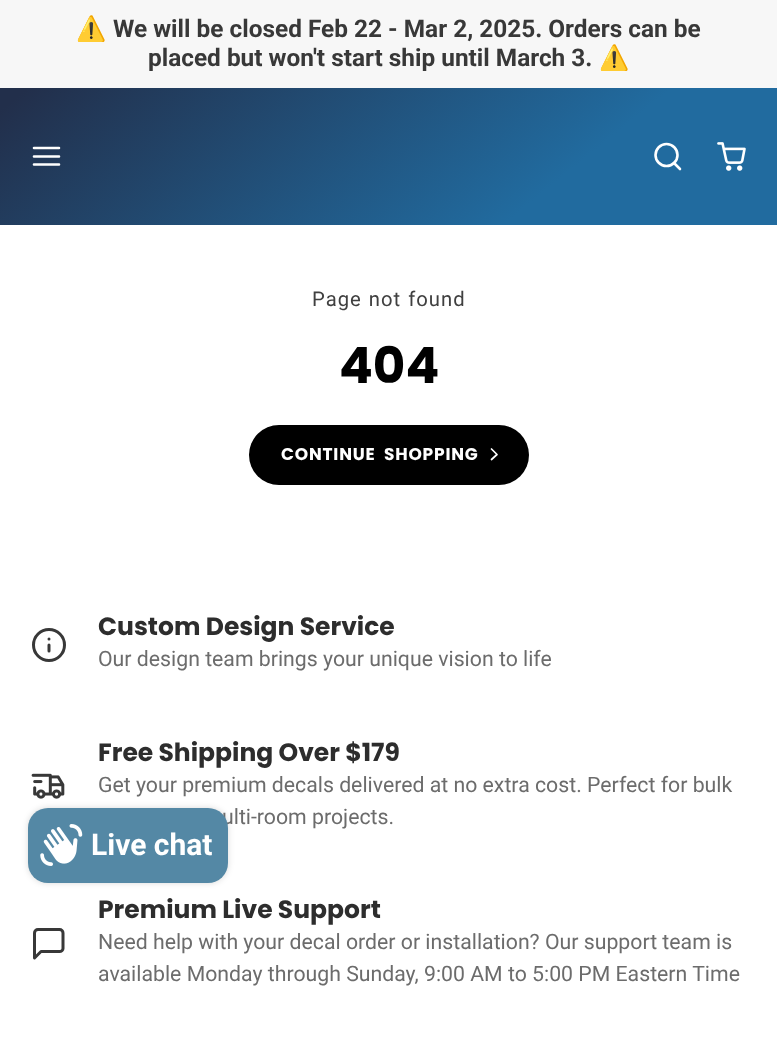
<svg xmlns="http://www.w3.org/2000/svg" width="777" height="1038">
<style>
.a{font:bold 24.4px Noto Color Emoji;fill:#383838}
.b{font:bold 24.4px Roboto;fill:#383838}
.c{font:20.25px Roboto;letter-spacing:1px;fill:#404040}
.d{font:bold 50px Poppins;fill:#000}
.e{font:bold 17px Poppins;letter-spacing:0.8px;fill:#fff}
.f{font:bold 25px Poppins;fill:#2d2d2d}
.g{font:21.25px Roboto;fill:#6c6c6c}
.h{font:bold 30px Roboto;fill:#fff}
</style>
<defs>
<linearGradient id="g1" gradientUnits="userSpaceOnUse" x1="201" y1="-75" x2="576" y2="388"><stop offset="0.03" stop-color="#222f4b"/><stop offset="0.71" stop-color="#216b9f"/></linearGradient>
</defs>
<rect width="100%" height="100%" fill="#fff"/>
<path fill="#f7f7f7" d="M0 0h777v88H0z"/>
<path fill="url(#g1)" d="M0 88h777v137H0z"/>
<path fill="none" stroke="#fff" stroke-width="2.6" stroke-linecap="round" stroke-linejoin="round" d="M34 156.5h25m-25-8.5h25m-25 16.5h25"/>
<circle fill="none" stroke="#fff" stroke-width="2.6" cx="666.5" cy="155" r="11"/>
<path fill="none" stroke="#fff" stroke-width="2.6" stroke-linecap="round" stroke-linejoin="round" d="M680 169l-6-6"/>
<image href="1.png" x="717" y="142" width="29" height="29"/>
<rect fill="#000" x="249" y="425" width="280" height="60" rx="30"/>
<path fill="none" stroke="#fff" stroke-width="1.7" stroke-linecap="round" stroke-linejoin="round" d="M491.5 459.5l5.5-5l-5.5-5.5"/>
<circle fill="none" stroke="#383838" stroke-width="3" cx="49" cy="645" r="15.5"/>
<path fill="none" stroke="#383838" stroke-width="3" stroke-linecap="round" stroke-linejoin="round" d="M49 651v-6m0-6h0"/>
<image href="2.png" x="31" y="773" width="34" height="26"/>
<path fill="none" stroke="#383838" stroke-width="3" stroke-linecap="round" stroke-linejoin="round" d="M63 948.5c0 1.5-1.5 3-3.5 3h-18.5l-6.5 6.5v-25c0-2 1.5-3.5 3.5-3.5h21.5c2 0 3.5 1.5 3.5 3.5z"/>
<rect fill="#00000026" filter="blur(3px)" x="28" y="808" width="200" height="75" rx="20"/>
<text class="a" x="76" y="37">⚠️</text>
<text class="b" x="113" y="37">We will be closed Feb 22 - Mar 2, 2025. Orders can be</text>
<text class="b" x="148" y="66">placed but won't start ship until March 3.</text>
<text class="a" x="599" y="66">⚠️</text>
<text class="c" x="312" y="306" word-spacing="1">Page not found</text>
<text class="d" x="339" y="383">404</text>
<text class="e" x="281" y="460" word-spacing="4">CONTINUE SHOPPING</text>
<text class="f" x="98" y="635">Custom Design Service</text>
<text class="g" x="98" y="666">Our design team brings your unique vision to life</text>
<text class="f" x="98" y="761">Free Shipping Over $179</text>
<text class="g" x="98" y="792">Get your premium decals delivered at no extra cost. Perfect for bulk</text>
<text class="g" x="222" y="824">ulti-room projects.</text>
<text class="f" x="98" y="918">Premium Live Support</text>
<text class="g" x="98" y="949">Need help with your decal order or installation? Our support team is</text>
<text class="g" x="98" y="981">available Monday through Sunday, 9:00 AM to 5:00 PM Eastern Time</text>
<rect fill="#5488a5" x="28" y="808" width="200" height="75" rx="20"/>
<image href="3.png" x="40" y="824" width="43" height="42"/>
<text class="h" x="91" y="855">Live chat</text>
</svg>
